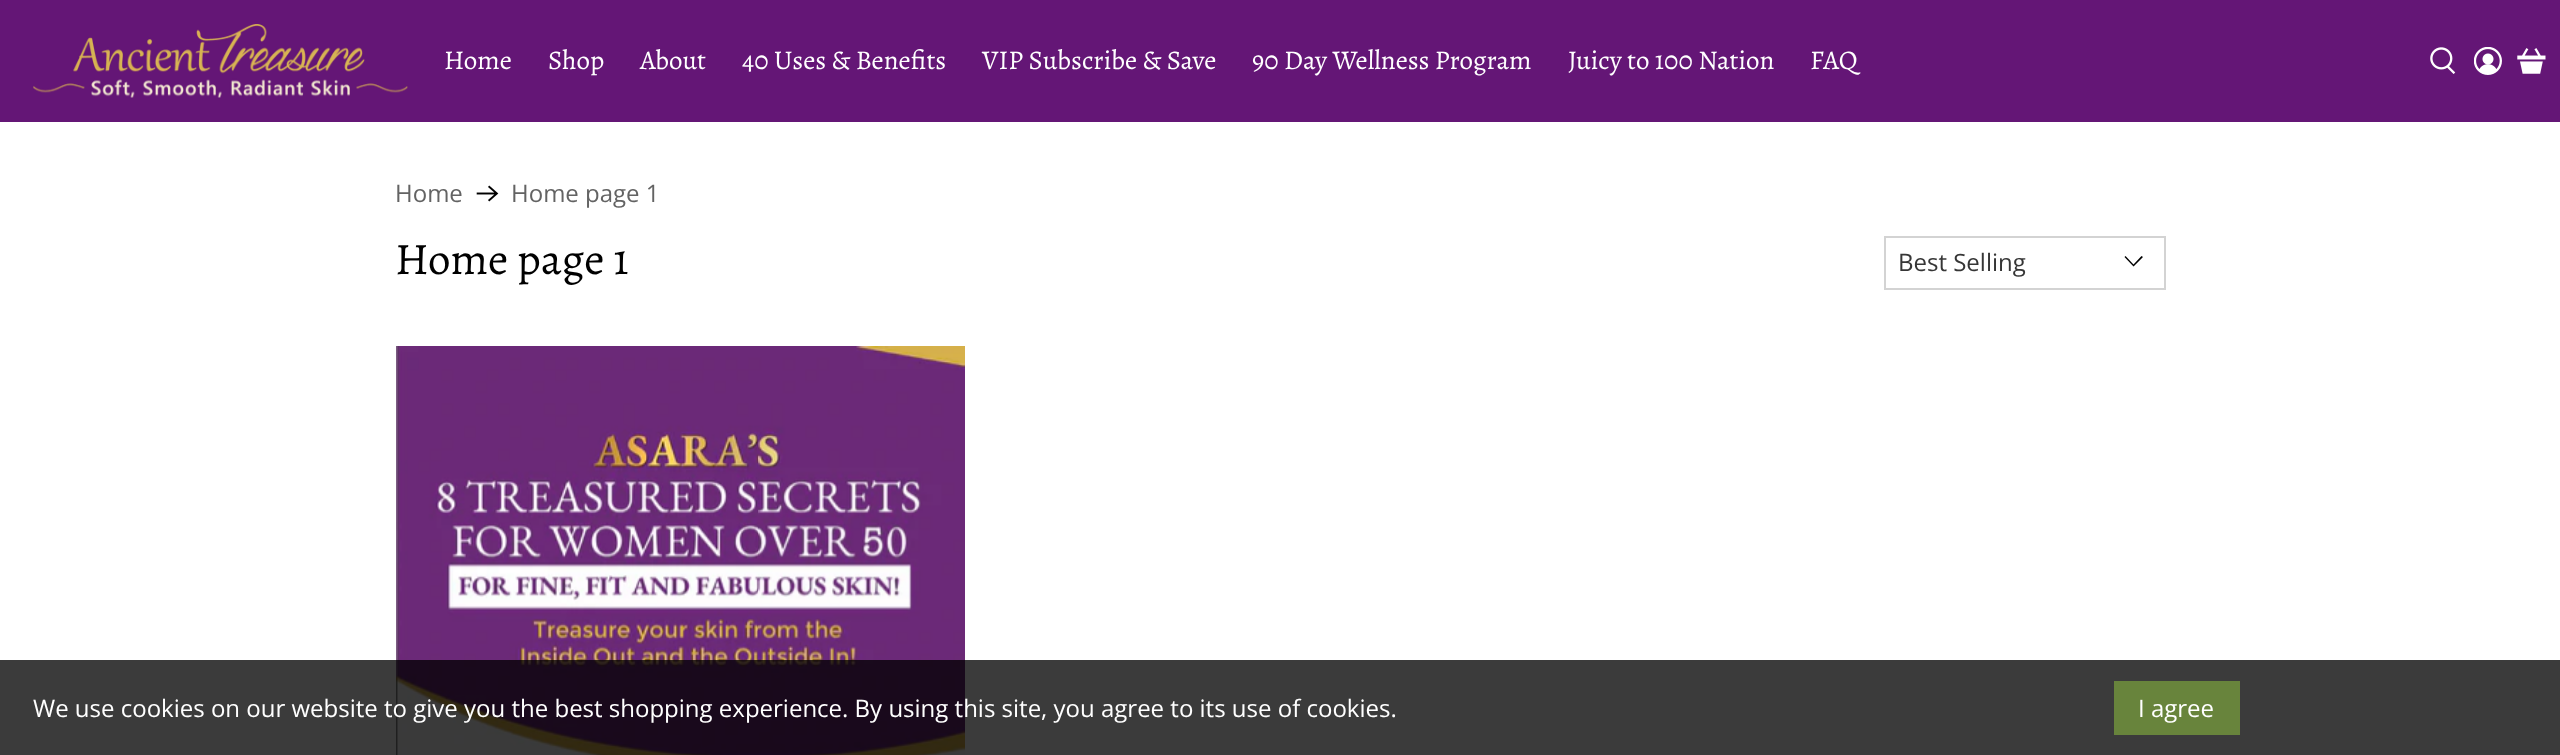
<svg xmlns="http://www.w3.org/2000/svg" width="2560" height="755">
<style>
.a{font:27px Alegreya;fill:#fff}
.b{font:24px Open Sans;fill:#636363}
.c{font:45px Alegreya;fill:#000}
.d{font:24px Open Sans;fill:#363636}
.e{font:24px Open Sans;fill:#fff}
</style>
<rect width="100%" height="100%" fill="#fff"/>
<path fill="#641676" d="M0 0h2560v122H0z"/>
<image href="1.png" x="33" y="24" width="375" height="74"/>
<image href="2.png" x="2430" y="47" width="26" height="27"/>
<image href="3.png" x="2474" y="47" width="28" height="28"/>
<image href="4.png" x="2517" y="48" width="29" height="26"/>
<image href="5.png" x="476" y="185" width="23" height="17"/>
<path fill="none" stroke="#d3d3d3" stroke-width="2" d="M1885 237h280v52H1885z"/>
<path fill="#000" d="M2133.5 266.5l-9-9.5l1-1l8 8.5l8-8.5l1.5 1z"/>
<image href="6.png" x="396" y="346" width="569" height="409"/>
<path fill="#000000c4" d="M0 660h2560v95H0z"/>
<path fill="#68843c" d="M2114 681h126v54H2114z"/>
<text class="a" x="444" y="69">Home</text>
<text class="a" x="548" y="69">Shop</text>
<text class="a" x="640" y="69">About</text>
<text class="a" x="742" y="69">40 Uses &amp; Benefits</text>
<text class="a" x="982" y="69">VIP Subscribe &amp; Save</text>
<text class="a" x="1252" y="69">90 Day Wellness Program</text>
<text class="a" x="1568" y="69">Juicy to 100 Nation</text>
<text class="a" x="1810" y="69">FAQ</text>
<text class="b" x="395" y="202">Home</text>
<text class="b" x="511" y="202">Home page 1</text>
<text class="c" x="395" y="274">Home page 1</text>
<text class="d" x="1898" y="271">Best Selling</text>
<text class="e" x="33" y="717">We use cookies on our website to give you the best shopping experience. By using this site, you agree to its use of cookies.</text>
<text class="e" x="2138" y="717">I agree</text>
</svg>
